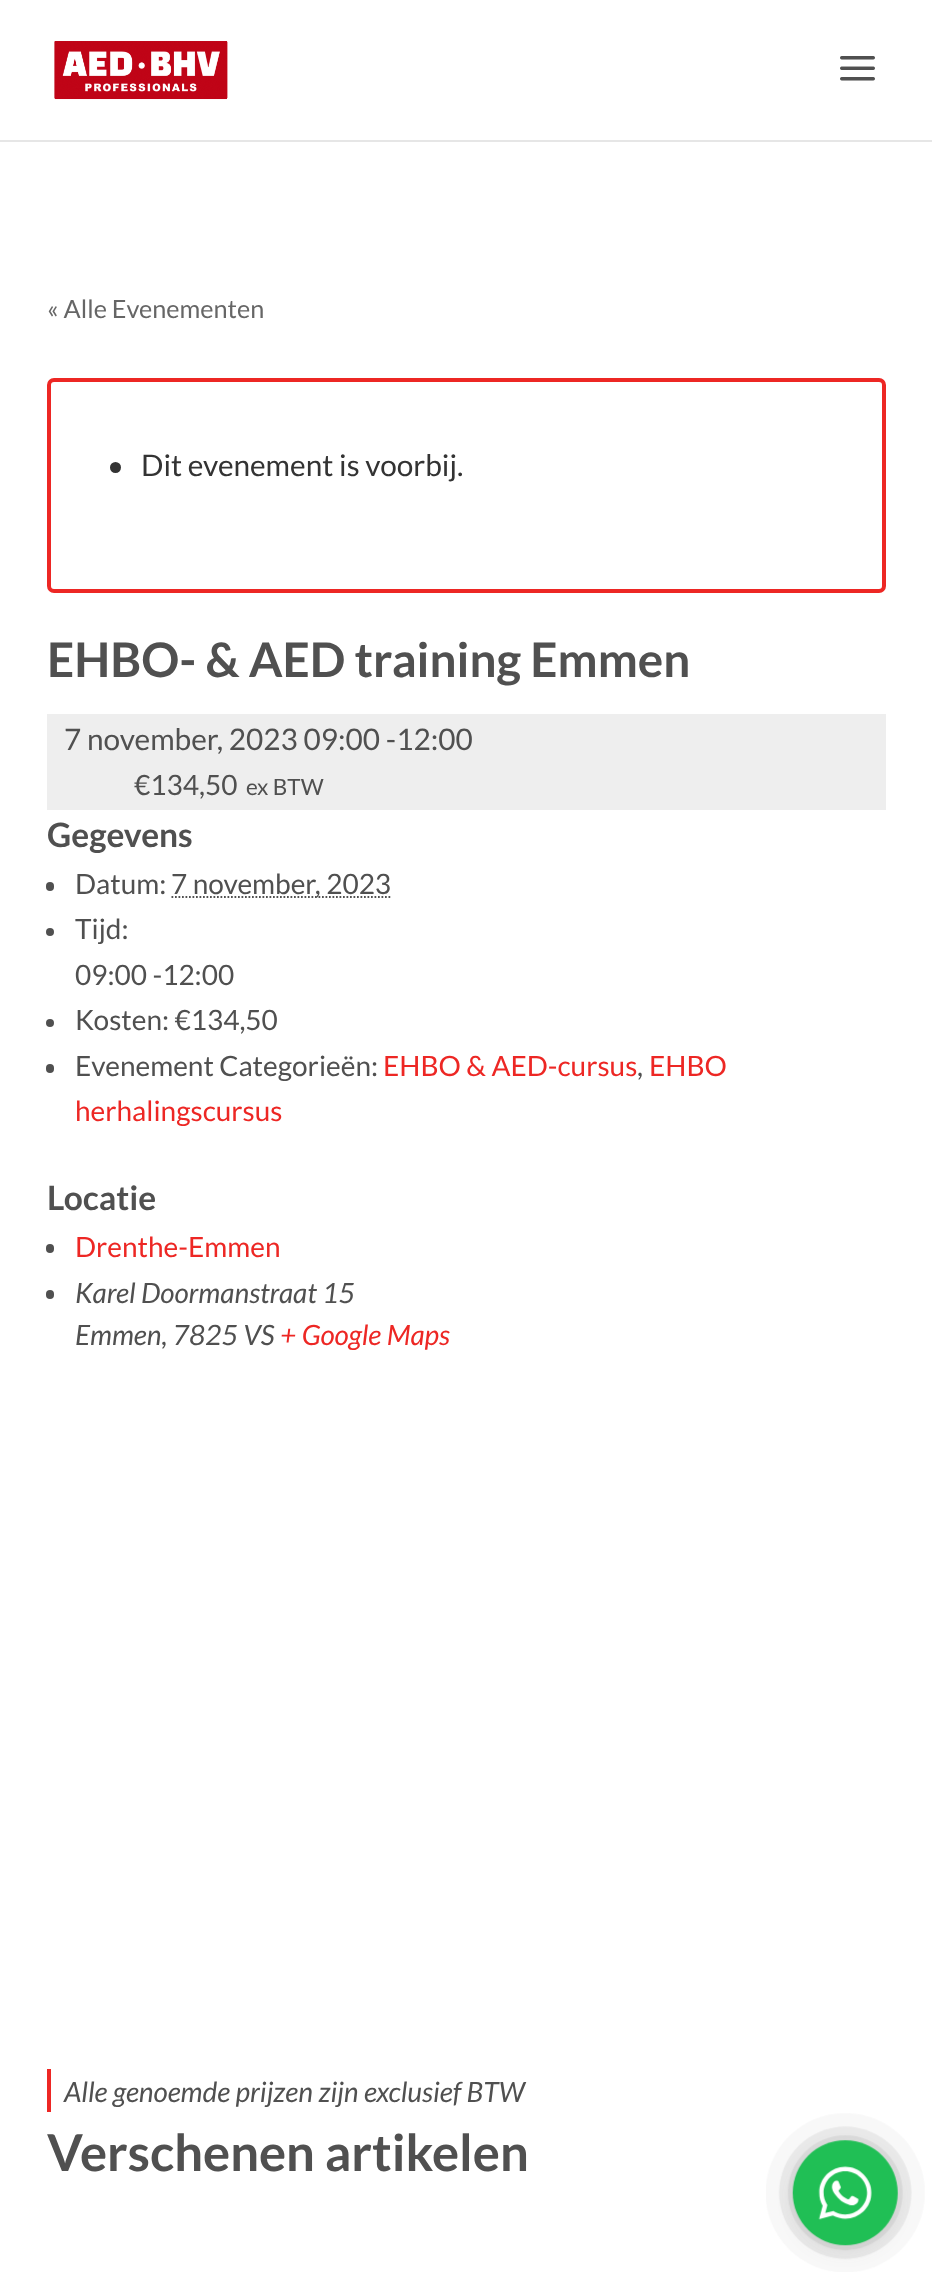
<svg xmlns="http://www.w3.org/2000/svg" width="932" height="2279">
<style>
.a{font:25.25px Lato;fill:#666}
.b{font:29.75px Lato;fill:#333}
.c{font:bold 47.6px Lato;fill:#505050}
.d{font:29.75px Lato;fill:#505050}
.e{font:28px Lato;fill:#505050}
.f{font:22.5px Lato;fill:#505050}
.g{font:bold 33.5px Lato;fill:#505050}
.h{font:28px Lato;fill:#ed2724}
.i{font:italic 28px Lato;fill:#505050}
.j{font:italic 28px Lato;fill:#ed2724}
.k{font:bold 50.75px Lato;fill:#505050}
</style>
<rect width="100%" height="100%" fill="#fff"/>
<path fill="#e6e6e6" d="M0 140v2h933v-140v138z"/>
<image href="1.png" x="54" y="41" width="174" height="59"/>
<image href="2.png" x="840" y="56" width="35" height="25"/>
<rect fill="none" stroke="#ed2724" stroke-width="4" x="49" y="380" width="835" height="211" rx="5"/>
<circle fill="#333" cx="115.5" cy="467.5" r="5.5"/>
<path fill="#eee" d="M47 714h839v96H47z"/>
<rect fill="#505050" x="46" y="882" width="8" height="9" rx="4"/>
<path fill="none" stroke="#505050" stroke-width="1.8" stroke-dasharray="1.75 1.75" d="M171.5 897h220"/>
<circle fill="#505050" cx="50" cy="932" r="4"/>
<circle fill="#505050" cx="50" cy="1023" r="4"/>
<rect fill="#505050" x="46" y="1064" width="8" height="9" rx="4"/>
<rect fill="#505050" x="46" y="1244" width="8" height="9" rx="4"/>
<rect fill="#505050" x="46" y="1290" width="8" height="9" rx="4"/>
<path fill="#ed2724" d="M47 2069h4v43H47z"/>
<image href="3.png" x="766" y="2113" width="159" height="159"/>
<text class="a" x="47" y="318">« Alle Evenementen</text>
<text class="b" x="141" y="476">Dit evenement is voorbij.</text>
<text class="c" x="47" y="677">EHBO- &amp; AED training Emmen</text>
<text class="d" x="64" y="750">7 november, 2023 09:00 -12:00</text>
<text class="e" x="134" y="795">€134,50</text>
<text class="f" x="246" y="795">ex BTW</text>
<text class="g" x="47" y="847">Gegevens</text>
<text class="e" x="75" y="894">Datum:</text>
<text class="e" x="171" y="894">7 november, 2023</text>
<text class="e" x="75" y="939">Tijd:</text>
<text class="e" x="75" y="985">09:00 -12:00</text>
<text class="e" x="75" y="1030">Kosten: €134,50</text>
<text class="e" x="75" y="1076">Evenement Categorieën:</text>
<text class="h" x="383" y="1076">EHBO &amp; AED-cursus</text>
<text class="h" x="649" y="1076">EHBO</text>
<text class="e" x="637" y="1076">,</text>
<text class="h" x="75" y="1121">herhalingscursus</text>
<text class="g" x="47" y="1210">Locatie</text>
<text class="h" x="75" y="1257">Drenthe-Emmen</text>
<text class="i" x="75" y="1303">Karel Doormanstraat 15</text>
<text class="i" x="75" y="1345">Emmen, 7825 VS</text>
<text class="j" x="280" y="1345">+ Google Maps</text>
<text class="i" x="64" y="2102">Alle genoemde prijzen zijn exclusief BTW</text>
<text class="k" x="47" y="2171">Verschenen artikelen</text>
</svg>
